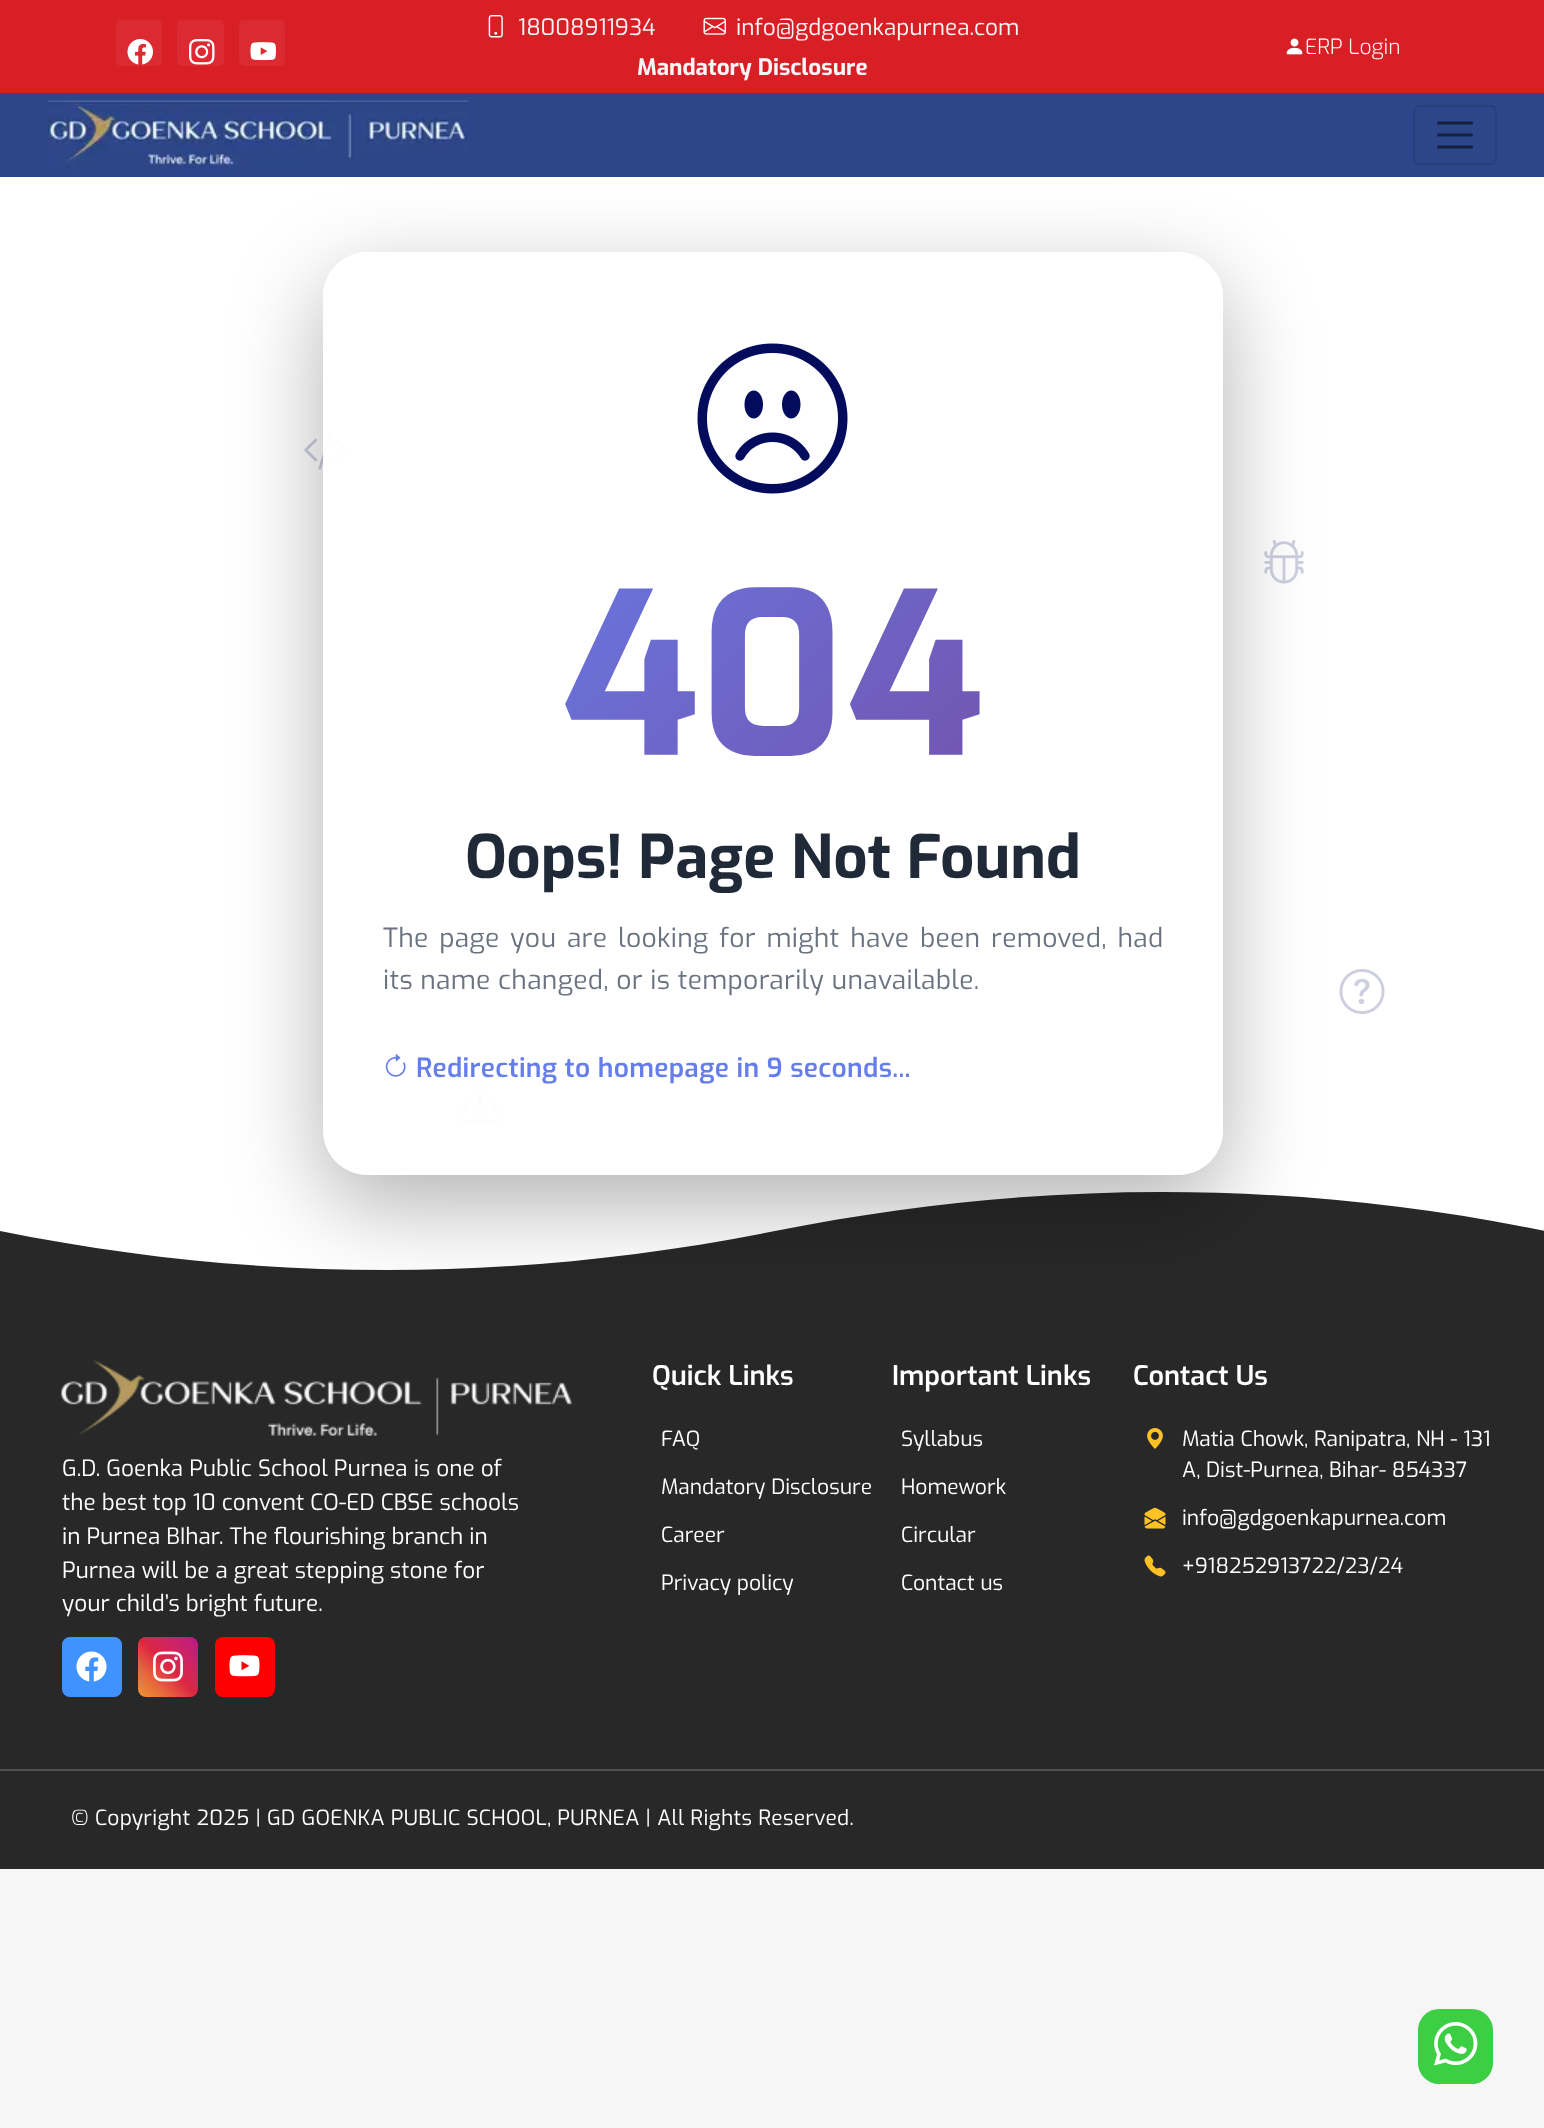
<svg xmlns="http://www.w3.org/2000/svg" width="1544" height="2128">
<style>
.a{font:22.5px Exo;fill:#f7f5f5}
.b{font:bold 22.5px Exo;fill:#f7f5f5}
.c{font:300 21px Exo;fill:#fff}
.d{font:bold 225px Exo;fill:url(#g1)}
.e{font:bold 60px Exo;fill:#1f2937}
.f{font:26.4px Exo;letter-spacing:0.3px;fill:#6b7280}
.g{font:600 26.4px Exo;letter-spacing:0.3px;fill:#667eea}
.h{font:22.5px Exo;fill:#fff}
.i{font:600 27px Exo;fill:#fff}
.j{font:21px Exo;fill:#fff}
.k{font:21px Exo;letter-spacing:0.3px;fill:#fff}
</style>
<defs>
<clipPath id="clip1"><path d="M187 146h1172v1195h-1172zm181 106h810c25 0 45 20 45 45v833c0 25-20 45-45 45h-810c-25 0-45-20-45-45v-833c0-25 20-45 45-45z" clip-rule="evenodd"/></clipPath>
<linearGradient id="g1" gradientUnits="userSpaceOnUse" x1="521" y1="428" x2="1024" y2="931"><stop offset="0" stop-color="#667eea"/><stop offset="1" stop-color="#764ba2"/></linearGradient>
<linearGradient id="g2" gradientUnits="userSpaceOnUse" x1="138" y1="1697" x2="198" y2="1637"><stop offset="0" stop-color="#f09433"/><stop offset="0.25" stop-color="#e6683c"/><stop offset="0.5" stop-color="#dc2743"/><stop offset="0.75" stop-color="#cc2366"/><stop offset="1" stop-color="#bc1888"/></linearGradient>
</defs>
<rect width="100%" height="100%" fill="#f6f6f6"/>
<path fill="#d91f26" d="M0 0h1544v93H0z"/>
<rect fill="#db2a31" x="116" y="20" width="46" height="46" rx="5"/>
<image href="1.png" x="127" y="39" width="26" height="26"/>
<rect fill="#db2a31" x="177" y="20" width="47" height="46" rx="5"/>
<image href="2.png" x="189" y="39" width="26" height="26"/>
<rect fill="#db2a31" x="239" y="20" width="46" height="46" rx="5"/>
<image href="3.png" x="250" y="42" width="26" height="19"/>
<image href="4.png" x="488" y="15" width="15" height="23"/>
<image href="5.png" x="703" y="17" width="23" height="18"/>
<image href="6.png" x="1286" y="38" width="17" height="17"/>
<path fill="#fff" d="M0 177h1544v1093H0z"/>
<image href="8.png" x="304" y="430" width="43" height="40"/>
<image href="9.png" x="1264" y="540" width="40" height="44"/>
<image href="10.png" x="1339" y="969" width="46" height="45"/>
<image href="11.png" x="457" y="1083" width="46" height="40"/>
<path fill="#282828" d="M0 1322h1544v547H0z"/>
<path fill="#282828" fill-rule="evenodd" d="M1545 1322h-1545v-91c257 52 515 52 775 0c259-52 516-52 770 0z"/>
<g clip-path="url(#clip1)">
<rect fill="#0000004d" filter="blur(45px)" x="323" y="282" width="900" height="923" rx="45"/>
</g>
<path fill="#2d4689" d="M0 93h1544v84H0z"/>
<image href="7.png" x="48" y="100" width="420" height="70"/>
<rect fill="none" stroke="#293f7b" stroke-width="2" x="1414" y="106" width="82" height="58" rx="5"/>
<path fill="none" stroke="#14203e" stroke-width="3" stroke-linecap="round" d="M1438.5 123h33m-33 12h33m-33 12h33"/>
<rect fill="#fffffff2" x="323" y="252" width="900" height="923" rx="45"/>
<image href="12.png" x="697" y="343" width="151" height="151"/>
<image href="13.png" x="385" y="1054" width="21" height="23"/>
<image href="14.png" x="61" y="1360" width="511" height="76"/>
<rect fill="#4093ff" x="62" y="1637" width="60" height="60" rx="8"/>
<image href="15.png" x="76" y="1651" width="31" height="31"/>
<rect fill="url(#g2)" x="138" y="1637" width="60" height="60" rx="8"/>
<image href="16.png" x="153" y="1651" width="30" height="31"/>
<rect fill="#f00" x="215" y="1637" width="60" height="60" rx="8"/>
<image href="17.png" x="229" y="1655" width="31" height="22"/>
<image href="18.png" x="1147" y="1428" width="16" height="21"/>
<image href="19.png" x="1144" y="1507" width="22" height="22"/>
<image href="20.png" x="1144" y="1555" width="22" height="22"/>
<path fill="#4f4f4f" d="M0 1769h1544v2H0z"/>
<rect fill="#3dcf43" x="1418" y="2009" width="75" height="75" rx="21"/>
<image href="21.png" x="1434" y="2022" width="44" height="44"/>
<text class="a" x="518" y="35">18008911934</text>
<text class="a" x="736" y="35">info@gdgoenkapurnea.com</text>
<text class="b" x="637" y="75">Mandatory Disclosure</text>
<text class="c" x="1305" y="54">ERP Login</text>
<text class="d" x="560" y="755">404</text>
<text class="e" x="465" y="878">Oops! Page Not Found</text>
<text class="f" x="383" y="947" word-spacing="3.25">The page you are looking for might have been removed, had</text>
<text class="f" x="383" y="989">its name changed, or is temporarily unavailable.</text>
<text class="g" x="416" y="1077">Redirecting to homepage in 9 seconds...</text>
<text class="h" x="62" y="1476">G.D. Goenka Public School Purnea is one of</text>
<text class="h" x="62" y="1510">the best top 10 convent CO-ED CBSE schools</text>
<text class="h" x="62" y="1544">in Purnea BIhar. The flourishing branch in</text>
<text class="h" x="62" y="1578">Purnea will be a great stepping stone for</text>
<text class="h" x="62" y="1611">your child’s bright future.</text>
<text class="i" x="652" y="1385">Quick Links</text>
<text class="j" x="661" y="1446">FAQ</text>
<text class="j" x="661" y="1494">Mandatory Disclosure</text>
<text class="j" x="661" y="1542">Career</text>
<text class="j" x="661" y="1590">Privacy policy</text>
<text class="i" x="892" y="1385">Important Links</text>
<text class="j" x="901" y="1446">Syllabus</text>
<text class="j" x="901" y="1494">Homework</text>
<text class="j" x="901" y="1542">Circular</text>
<text class="j" x="901" y="1590">Contact us</text>
<text class="i" x="1133" y="1385">Contact Us</text>
<text class="j" x="1182" y="1446">Matia Chowk, Ranipatra, NH - 131</text>
<text class="j" x="1182" y="1477">A, Dist-Purnea, Bihar- 854337</text>
<text class="j" x="1182" y="1525">info@gdgoenkapurnea.com</text>
<text class="j" x="1182" y="1573">+918252913722/23/24</text>
<text class="k" x="71" y="1825">© Copyright 2025 | GD GOENKA PUBLIC SCHOOL, PURNEA | All Rights Reserved.</text>
</svg>
